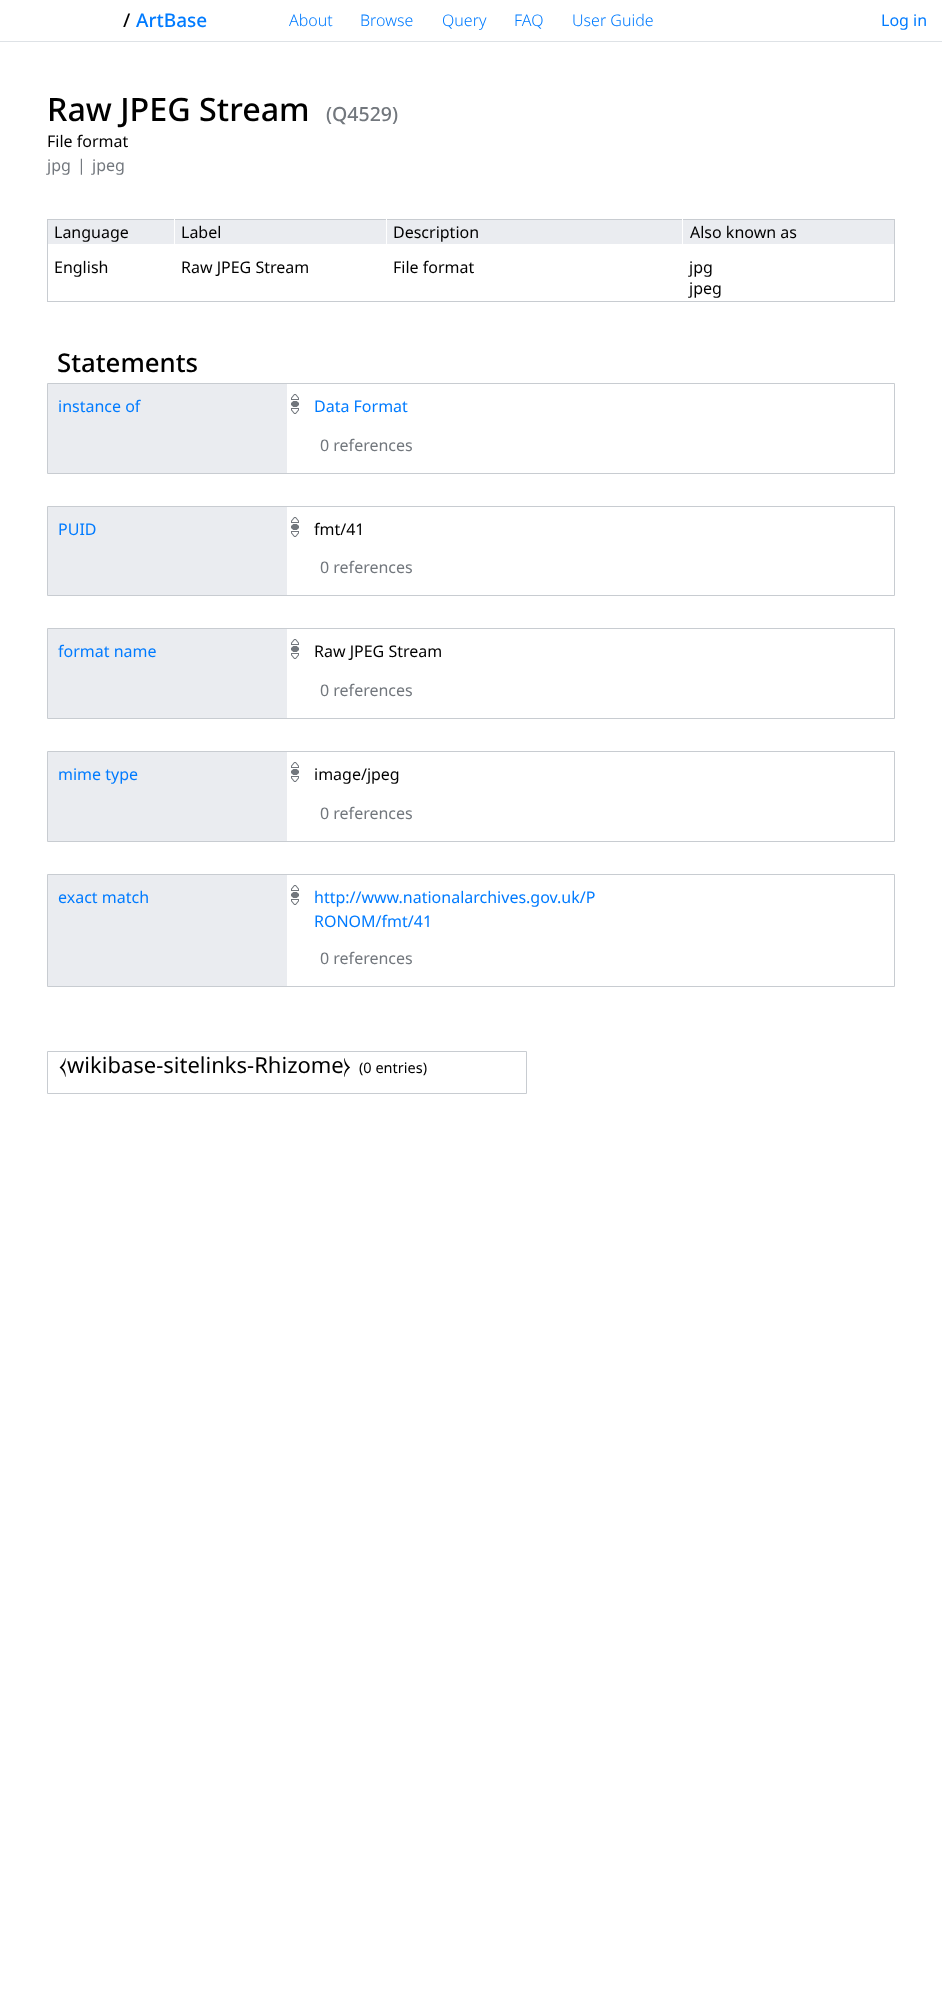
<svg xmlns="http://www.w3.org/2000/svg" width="942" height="2000">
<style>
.a{font:500 19px Noto Sans;fill:#000}
.b{font:500 19px Noto Sans;fill:#007bff}
.c{font:300 16px Noto Sans;fill:#007bff}
.d{font:16px Noto Sans;fill:#007bff}
.e{font:500 32.25px Noto Sans;fill:#000}
.f{font:500 19.5px Noto Sans;fill:#72777d}
.g{font:16px Noto Sans;fill:#000}
.h{font:16px Noto Sans;fill:#72777d}
.i{font:500 25.75px Noto Sans;fill:#000}
.j{font:22px FreeSerif;fill:#000}
.k{font:22px Noto Sans;fill:#000}
.l{font:14.5px Noto Sans;fill:#000}
</style>
<rect width="100%" height="100%" fill="#fff"/>
<path fill="#dee2e6" d="M0 41h942v1H0z"/>
<path fill="#c8ccd1" d="M47 219h848v1H47z"/>
<path fill="#c8ccd1" d="M894 219h1v83H894z"/>
<path fill="#c8ccd1" d="M47 301h848v1H47z"/>
<path fill="#c8ccd1" d="M47 219h1v83H47z"/>
<path fill="#eaecf0" d="M48 220h126v24H48z"/>
<path fill="#fff" d="M174 219h1v1H174z"/>
<path fill="#eaecf0" d="M175 220h211v24H175z"/>
<path fill="#fff" d="M386 219h1v1H386z"/>
<path fill="#eaecf0" d="M387 220h295v24H387z"/>
<path fill="#fff" d="M682 219h1v1H682z"/>
<path fill="#eaecf0" d="M683 220h211v24H683z"/>
<path fill="none" stroke="#c8ccd1" d="M47.5 383.5h847v90H47.5z"/>
<path fill="#eaecf0" d="M48 384h239v89H48z"/>
<image href="1.png" x="291" y="394" width="8" height="20"/>
<path fill="none" stroke="#c8ccd1" d="M47.5 506.5h847v89H47.5z"/>
<path fill="#eaecf0" d="M48 507h239v88H48z"/>
<image href="1.png" x="291" y="517" width="8" height="20"/>
<path fill="none" stroke="#c8ccd1" d="M47.5 628.5h847v90H47.5z"/>
<path fill="#eaecf0" d="M48 629h239v89H48z"/>
<image href="1.png" x="291" y="639" width="8" height="20"/>
<path fill="none" stroke="#c8ccd1" d="M47.5 751.5h847v90H47.5z"/>
<path fill="#eaecf0" d="M48 752h239v89H48z"/>
<image href="1.png" x="291" y="762" width="8" height="20"/>
<path fill="none" stroke="#c8ccd1" d="M47.5 874.5h847v112H47.5z"/>
<path fill="#eaecf0" d="M48 875h239v111H48z"/>
<image href="1.png" x="291" y="885" width="8" height="20"/>
<path fill="none" stroke="#c8ccd1" d="M47.5 1051.5h479v42H47.5z"/>
<text class="a" x="123" y="27">/</text>
<text class="b" x="136" y="27">ArtBase</text>
<text class="c" x="289" y="26">About</text>
<text class="c" x="360" y="26">Browse</text>
<text class="c" x="442" y="26">Query</text>
<text class="c" x="514" y="26">FAQ</text>
<text class="c" x="572" y="26">User Guide</text>
<text class="d" x="881" y="26">Log in</text>
<text class="e" x="47" y="121">Raw JPEG Stream</text>
<text class="f" x="326" y="121">(Q4529)</text>
<text class="g" x="47" y="147">File format</text>
<text class="h" x="47" y="171">jpg</text>
<text class="h" x="77" y="171">|</text>
<text class="h" x="92" y="171">jpeg</text>
<text class="g" x="54" y="238">Language</text>
<text class="g" x="181" y="238">Label</text>
<text class="g" x="393" y="238">Description</text>
<text class="g" x="690" y="238">Also known as</text>
<text class="g" x="54" y="273">English</text>
<text class="g" x="181" y="273">Raw JPEG Stream</text>
<text class="g" x="393" y="273">File format</text>
<text class="g" x="689" y="273">jpg</text>
<text class="g" x="689" y="294">jpeg</text>
<text class="i" x="57" y="372">Statements</text>
<text class="d" x="58" y="412">instance of</text>
<text class="d" x="314" y="412">Data Format</text>
<text class="h" x="320" y="451">0 references</text>
<text class="d" x="58" y="535">PUID</text>
<text class="g" x="314" y="535">fmt/41</text>
<text class="h" x="320" y="573">0 references</text>
<text class="d" x="58" y="657">format name</text>
<text class="g" x="314" y="657">Raw JPEG Stream</text>
<text class="h" x="320" y="696">0 references</text>
<text class="d" x="58" y="780">mime type</text>
<text class="g" x="314" y="780">image/jpeg</text>
<text class="h" x="320" y="819">0 references</text>
<text class="d" x="58" y="903">exact match</text>
<text class="d" x="314" y="903">http://www.nationalarchives.gov.uk/P</text>
<text class="d" x="314" y="927">RONOM/fmt/41</text>
<text class="h" x="320" y="964">0 references</text>
<text class="j" x="59" y="1073">⧼</text>
<text class="k" x="67" y="1073">wikibase-sitelinks-Rhizome</text>
<text class="j" x="343" y="1073">⧽</text>
<text class="l" x="359" y="1073">(0 entries)</text>
</svg>
